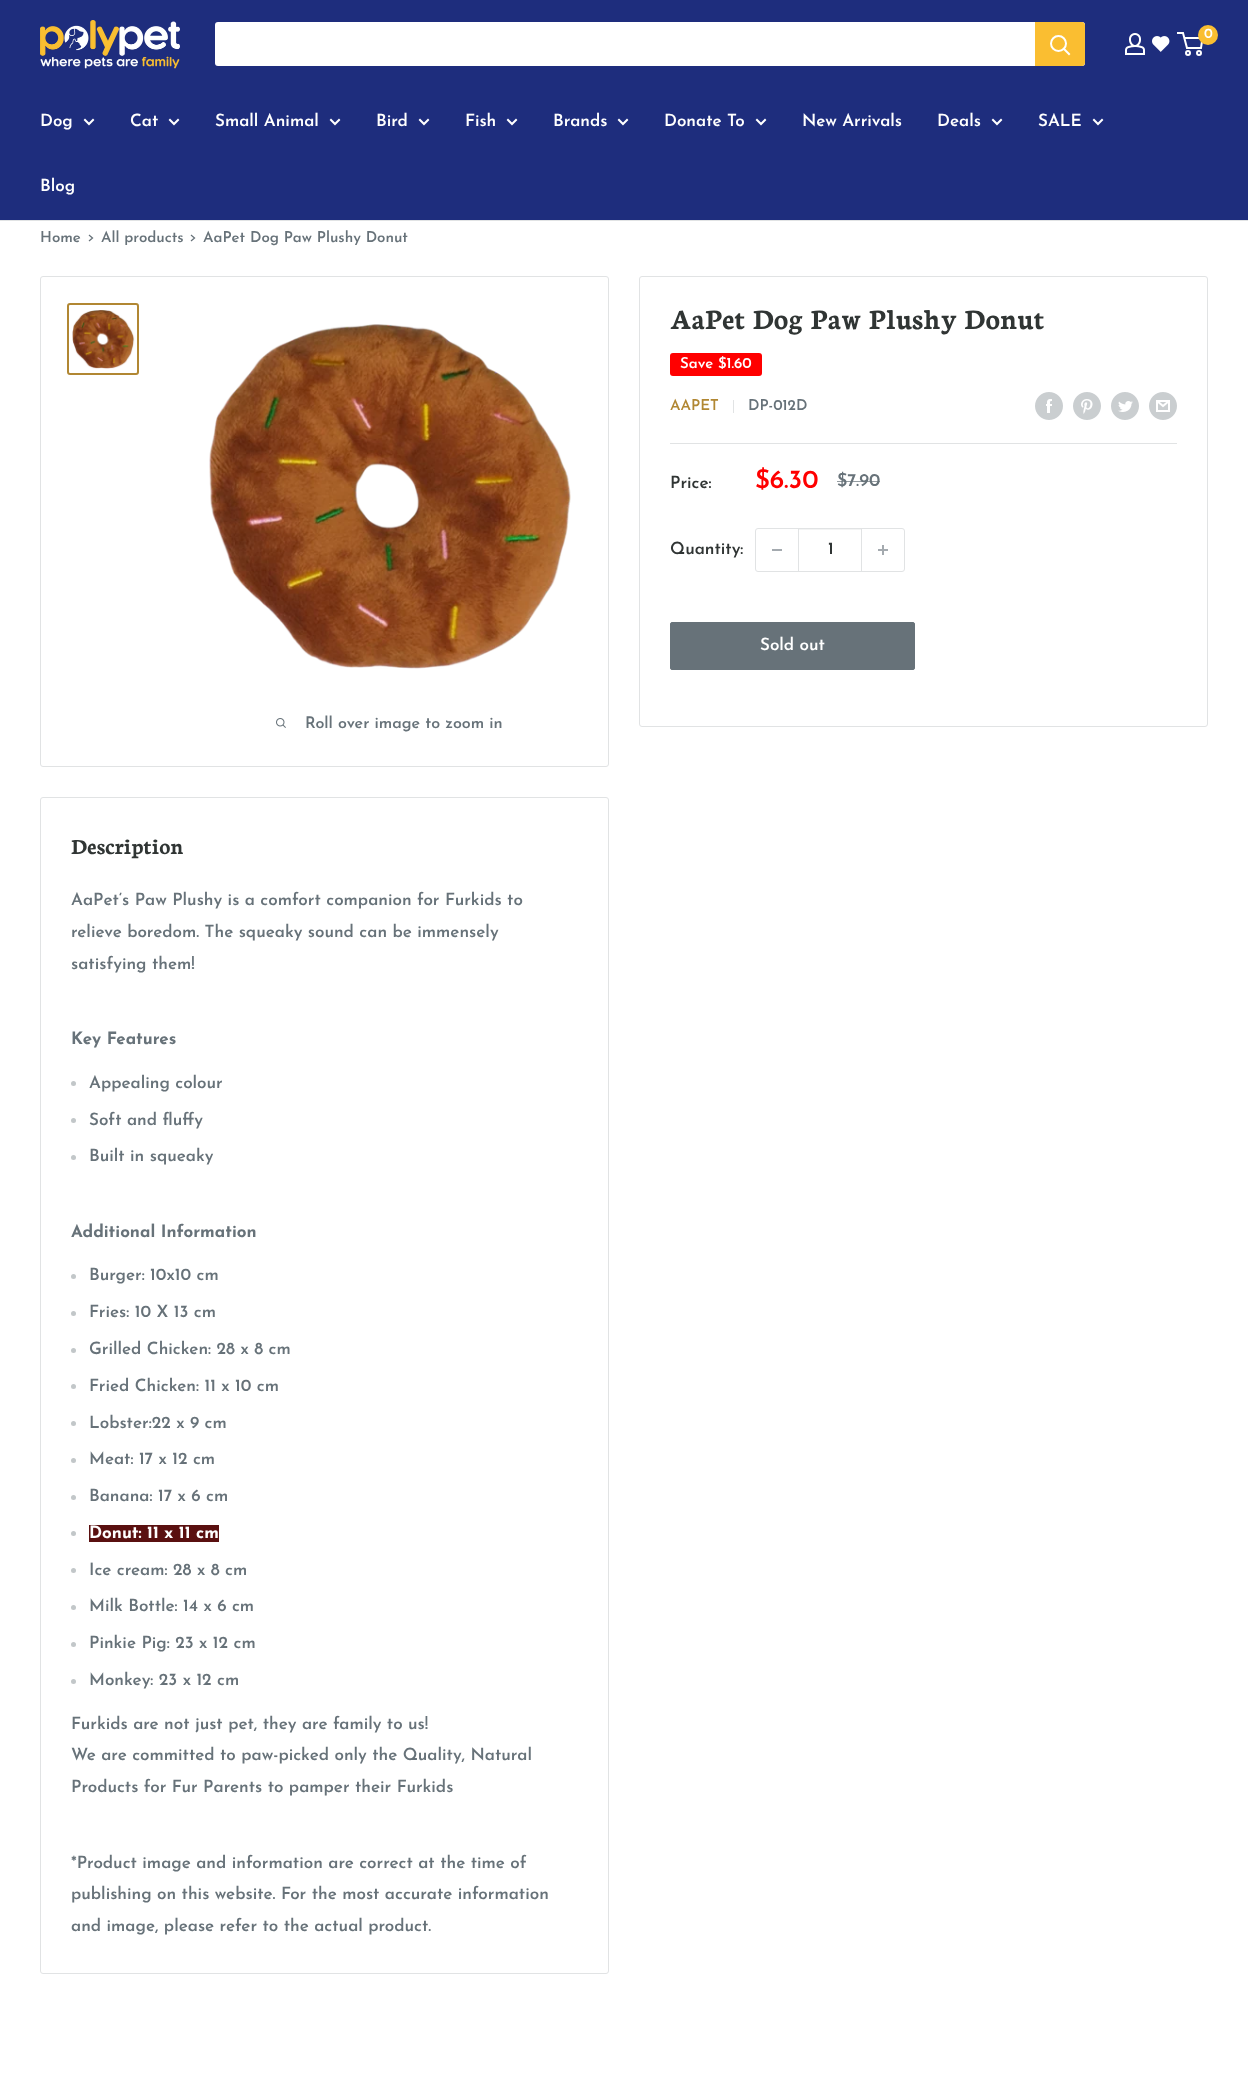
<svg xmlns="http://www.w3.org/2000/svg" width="1248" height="2078">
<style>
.a{font:600 14px Josefin Sans;fill:#fff}
.b{font:600 17px Josefin Sans;fill:#fff}
.c{font:600 15px Josefin Sans;fill:#677279}
.d{font:bold 30px Neuton;fill:#303534}
.e{font:600 15px Josefin Sans;fill:#fff}
.f{font:600 15px Josefin Sans;fill:#b18733}
.g{font:600 17px Josefin Sans;fill:#303534}
.h{font:600 26px Josefin Sans;fill:#f00}
.i{font:600 18px Josefin Sans;fill:#677279}
.j{font:600 16px Josefin Sans;fill:#677279}
.k{font:bold 23px Neuton;fill:#303534}
.l{font:600 17px Josefin Sans;fill:#677279}
.m{font:bold 17px Josefin Sans;fill:#677279}
.n{font:bold 17px Josefin Sans;fill:#fff}
</style>
<rect width="100%" height="100%" fill="#fff"/>
<path fill="#1e2d7d" d="M0 0h1248v220H0z"/>
<image href="1.png" x="40" y="20" width="140" height="49"/>
<rect fill="#fff" x="215" y="22" width="870" height="44" rx="3"/>
<path fill="#fabe31" d="M1035 22h47c1.5 0 3 1.5 3 3v38c0 1.5-1.5 3-3 3h-47z"/>
<path fill="none" stroke="#fff" stroke-width="2" stroke-linecap="square" d="M1069 54l-5-5"/>
<circle fill="none" stroke="#fff" stroke-width="2" cx="1058.5" cy="43.5" r="7.5"/>
<image href="2.png" x="1125" y="33" width="20" height="22"/>
<image href="3.png" x="1152" y="36" width="18" height="16"/>
<circle fill="none" stroke="#fff" stroke-width="2" cx="1188" cy="53" r="2"/>
<circle fill="none" stroke="#fff" stroke-width="2" cx="1199" cy="53" r="2"/>
<path fill="none" stroke="#fff" stroke-width="2" d="M1184.5 38h18l-1.5 10h-14l-4-15h-6"/>
<circle fill="#fabe31" cx="1208" cy="35" r="10"/>
<path fill="#e1e3e4" d="M0 220h1248v1H0z"/>
<path fill="none" stroke="#fff" stroke-width="2" stroke-linecap="square" d="M93 120l-4 4l-4-4"/>
<path fill="none" stroke="#fff" stroke-width="2" stroke-linecap="square" d="M178 120l-4 4l-4-4"/>
<path fill="none" stroke="#fff" stroke-width="2" stroke-linecap="square" d="M339 120l-4 4l-4-4"/>
<path fill="none" stroke="#fff" stroke-width="2" stroke-linecap="square" d="M428 120l-4 4l-4-4"/>
<path fill="none" stroke="#fff" stroke-width="2" stroke-linecap="square" d="M516 120l-4 4l-4-4"/>
<path fill="none" stroke="#fff" stroke-width="2" stroke-linecap="square" d="M627 120l-4 4l-4-4"/>
<path fill="none" stroke="#fff" stroke-width="2" stroke-linecap="square" d="M765 120l-4 4l-4-4"/>
<path fill="none" stroke="#fff" stroke-width="2" stroke-linecap="square" d="M1001 120l-4 4l-4-4"/>
<path fill="none" stroke="#fff" stroke-width="2" stroke-linecap="square" d="M1102 120l-4 4l-4-4"/>
<path fill="none" stroke="#677279" stroke-width="1.3" stroke-linecap="square" d="M89.5 235.5l3 2.5l-3 2.5"/>
<path fill="none" stroke="#677279" stroke-width="1.3" stroke-linecap="square" d="M191.5 235.5l3 2.5l-3 2.5"/>
<rect fill="none" stroke="#e1e3e4" x="639.5" y="276.5" width="568" height="450" rx="2.5"/>
<rect fill="#f00" x="670" y="353" width="92" height="23" rx="3"/>
<path fill="#e1e3e4" d="M733 400h1v13H733z"/>
<image href="4.png" x="1035" y="392" width="28" height="28"/>
<image href="5.png" x="1073" y="392" width="28" height="28"/>
<image href="6.png" x="1111" y="392" width="28" height="28"/>
<image href="7.png" x="1149" y="392" width="28" height="28"/>
<path fill="#e1e3e4" d="M670 443h507v1H670z"/>
<rect fill="none" stroke="#e1e3e4" x="755.5" y="528.5" width="149" height="43" rx="2.5"/>
<path fill="#a4aaaf" d="M772 549h10v2H772z"/>
<path fill="#f3f4f4" d="M799 529h62v1H799z"/>
<path fill="#e1e3e4" d="M861 529h1v42H861z"/>
<path fill="#e1e3e4" d="M798 529h1v42H798z"/>
<image href="8.png" x="878" y="545" width="10" height="10"/>
<rect fill="#677279" stroke="#677279" x="670.5" y="622.5" width="244" height="47" rx="1.5"/>
<rect fill="none" stroke="#e1e3e4" x="40.5" y="276.5" width="568" height="490" rx="2.5"/>
<rect fill="none" stroke="#b18733" stroke-width="2" x="68" y="304" width="70" height="70" rx="2"/>
<image href="9.png" x="72" y="310" width="63" height="59"/>
<image href="10.png" x="209" y="324" width="362" height="345"/>
<image href="11.png" x="276" y="718" width="10" height="10"/>
<rect fill="none" stroke="#e1e3e4" x="40.5" y="797.5" width="568" height="1176" rx="2.5"/>
<circle fill="#c2c7c9" cx="73.5" cy="1083.5" r="2.5"/>
<circle fill="#c2c7c9" cx="73.5" cy="1120.5" r="2.5"/>
<circle fill="#c2c7c9" cx="73.5" cy="1157.5" r="2.5"/>
<circle fill="#c2c7c9" cx="73.5" cy="1276.5" r="2.5"/>
<circle fill="#c2c7c9" cx="73.5" cy="1313.5" r="2.5"/>
<circle fill="#c2c7c9" cx="73.5" cy="1350.5" r="2.5"/>
<circle fill="#c2c7c9" cx="73.5" cy="1386.5" r="2.5"/>
<circle fill="#c2c7c9" cx="73.5" cy="1423.5" r="2.5"/>
<circle fill="#c2c7c9" cx="73.5" cy="1460.5" r="2.5"/>
<circle fill="#c2c7c9" cx="73.5" cy="1497.5" r="2.5"/>
<circle fill="#c2c7c9" cx="73.5" cy="1533.5" r="2.5"/>
<path fill="#5a1010" d="M89 1525h130v17H89z"/>
<circle fill="#c2c7c9" cx="73.5" cy="1570.5" r="2.5"/>
<circle fill="#c2c7c9" cx="73.5" cy="1607.5" r="2.5"/>
<circle fill="#c2c7c9" cx="73.5" cy="1644.5" r="2.5"/>
<circle fill="#c2c7c9" cx="73.5" cy="1681.5" r="2.5"/>
<text class="a" x="1204" y="38">0</text>
<text class="b" x="40" y="126">Dog</text>
<text class="b" x="130" y="126">Cat</text>
<text class="b" x="215" y="126">Small Animal</text>
<text class="b" x="376" y="126">Bird</text>
<text class="b" x="465" y="126">Fish</text>
<text class="b" x="553" y="126">Brands</text>
<text class="b" x="664" y="126">Donate To</text>
<text class="b" x="802" y="126">New Arrivals</text>
<text class="b" x="937" y="126">Deals</text>
<text class="b" x="1038" y="126">SALE</text>
<text class="b" x="40" y="191">Blog</text>
<text class="c" x="40" y="242">Home</text>
<text class="c" x="101" y="242">All products</text>
<text class="c" x="203" y="242">AaPet Dog Paw Plushy Donut</text>
<text class="d" x="670" y="329">AaPet Dog Paw Plushy Donut</text>
<text class="e" x="680" y="368">Save $1.60</text>
<text class="f" x="670" y="410">AAPET</text>
<text class="c" x="748" y="410">DP-012D</text>
<text class="g" x="670" y="488">Price:</text>
<text class="h" x="755" y="488">$6.30</text>
<text class="i" x="837" y="486">$7.90</text>
<path fill="#677279b3" d="M837 481h43v1H837z"/>
<text class="g" x="670" y="554">Quantity:</text>
<text class="g" x="828" y="554">1</text>
<text class="b" x="760" y="650">Sold out</text>
<text class="j" x="305" y="728">Roll over image to zoom in</text>
<text class="k" x="71" y="854">Description</text>
<text class="l" x="71" y="905">AaPet’s Paw Plushy is a comfort companion for Furkids to</text>
<text class="l" x="71" y="937">relieve boredom. The squeaky sound can be immensely</text>
<text class="l" x="71" y="969">satisfying them!</text>
<text class="m" x="71" y="1044">Key Features</text>
<text class="l" x="89" y="1088">Appealing colour</text>
<text class="l" x="89" y="1125">Soft and fluffy</text>
<text class="l" x="89" y="1161">Built in squeaky</text>
<text class="m" x="71" y="1237">Additional Information</text>
<text class="l" x="89" y="1280">Burger: 10x10 cm</text>
<text class="l" x="89" y="1317">Fries: 10 X 13 cm</text>
<text class="l" x="89" y="1354">Grilled Chicken: 28 x 8 cm</text>
<text class="l" x="89" y="1391">Fried Chicken: 11 x 10 cm</text>
<text class="l" x="89" y="1428">Lobster:22 x 9 cm</text>
<text class="l" x="89" y="1464">Meat: 17 x 12 cm</text>
<text class="l" x="89" y="1501">Banana: 17 x 6 cm</text>
<text class="n" x="89" y="1538">Donut: 11 x 11 cm</text>
<text class="l" x="89" y="1575">Ice cream: 28 x 8 cm</text>
<text class="l" x="89" y="1611">Milk Bottle: 14 x 6 cm</text>
<text class="l" x="89" y="1648">Pinkie Pig: 23 x 12 cm</text>
<text class="l" x="89" y="1685">Monkey: 23 x 12 cm</text>
<text class="l" x="71" y="1729">Furkids are not just pet, they are family to us!</text>
<text class="l" x="71" y="1760">We are committed to paw-picked only the Quality, Natural</text>
<text class="l" x="71" y="1792">Products for Fur Parents to pamper their Furkids</text>
<text class="l" x="71" y="1868">*Product image and information are correct at the time of</text>
<text class="l" x="71" y="1899">publishing on this website. For the most accurate information</text>
<text class="l" x="71" y="1931">and image, please refer to the actual product.</text>
</svg>
